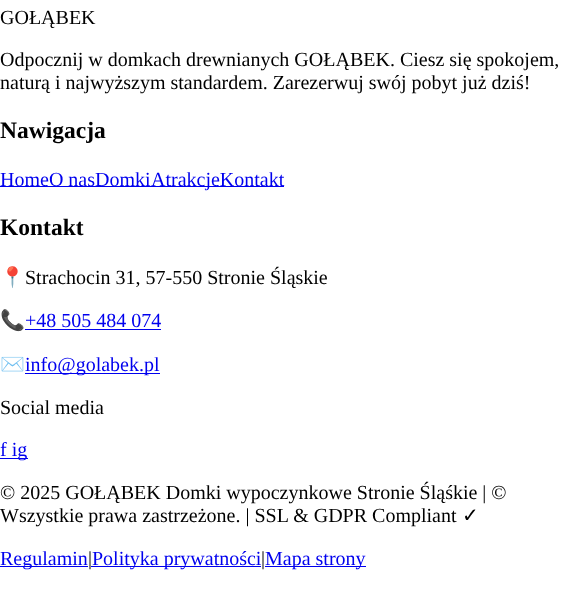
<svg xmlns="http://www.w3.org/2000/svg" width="587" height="593">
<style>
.a{font:20px Liberation Serif;fill:#000}
.b{font:bold 23.5px Liberation Serif;fill:#000}
.c{font:20px Liberation Serif;fill:#00e}
.d{font:20px Noto Color Emoji;fill:#000}
.e{font:20px DejaVu Sans;fill:#000}
</style>
<rect width="100%" height="100%" fill="#fff"/>
<path fill="#00e" d="M0 186h150v1H0z"/>
<path fill="#00e" d="M150 186h134v1H150z"/>
<path fill="#00e" d="M25 329h136v1H25z"/>
<path fill="#00e" d="M25 373h135v1H25z"/>
<path fill="#00e" d="M0 458h28v1H0z"/>
<path fill="#00e" d="M0 566h88v1H0z"/>
<path fill="#00e" d="M91 566h170v1H91z"/>
<path fill="#00e" d="M265 566h101v1H265z"/>
<text class="a" x="0" y="24">GOŁĄBEK</text>
<text class="a" x="0" y="66">Odpocznij w domkach drewnianych GOŁĄBEK. Ciesz się spokojem,</text>
<text class="a" x="0" y="89">naturą i najwyższym standardem. Zarezerwuj swój pobyt już dziś!</text>
<text class="b" x="0" y="138">Nawigacja</text>
<text class="c" x="0" y="186">HomeO nasDomki</text>
<text class="c" x="151" y="186">AtrakcjeKontakt</text>
<text class="b" x="0" y="235">Kontakt</text>
<text class="d" x="0" y="284">📍</text>
<text class="a" x="25" y="284">Strachocin 31, 57-550 Stronie Śląskie</text>
<text class="d" x="0" y="327">📞</text>
<text class="c" x="25" y="327">+48 505 484 074</text>
<text class="d" x="0" y="371">✉️</text>
<text class="c" x="25" y="371">info@golabek.pl</text>
<text class="a" x="0" y="414">Social media</text>
<text class="c" x="0" y="456">f ig</text>
<text class="a" x="0" y="499">© 2025 GOŁĄBEK Domki wypoczynkowe Stronie Śląśkie | ©</text>
<text class="a" x="0" y="522">Wszystkie prawa zastrzeżone. | SSL &amp; GDPR Compliant</text>
<text class="e" x="462" y="522">✓</text>
<text class="c" x="0" y="565">Regulamin</text>
<text class="a" x="88" y="565">|</text>
<text class="c" x="92" y="565">Polityka prywatności</text>
<text class="a" x="261" y="565">|</text>
<text class="c" x="265" y="565">Mapa strony</text>
</svg>
